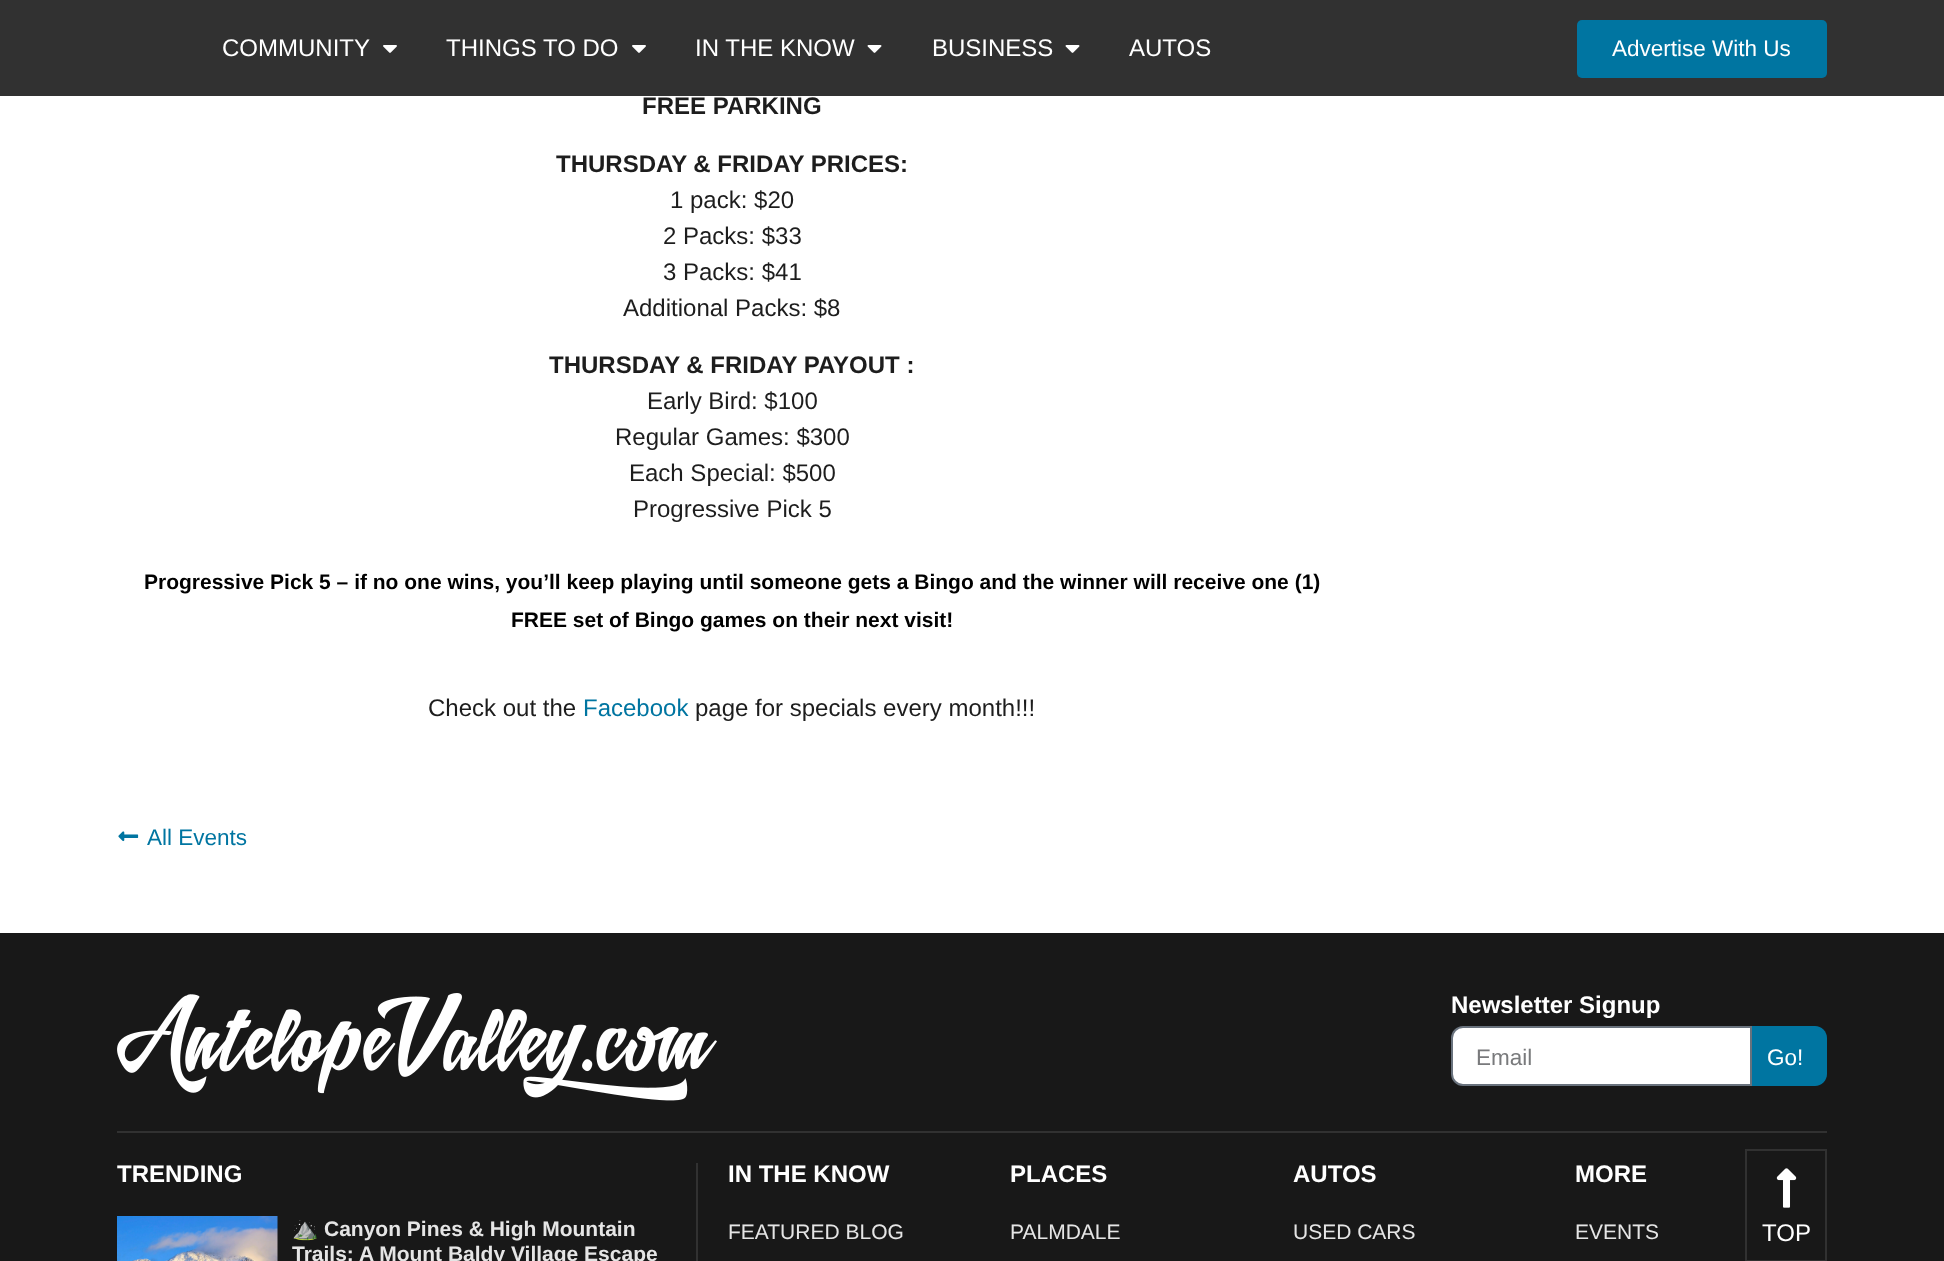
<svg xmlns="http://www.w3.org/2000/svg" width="1944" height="1261">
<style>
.a{font:24px Liberation Sans;fill:#fff}
.b{font:22.5px Liberation Sans;fill:#fff}
.c{font:bold 24px Liberation Sans;fill:#1d1d1d}
.d{font:24px Liberation Sans;fill:#1d1d1d}
.e{font:bold 21px Liberation Sans;fill:#000}
.f{font:24px Liberation Sans;fill:#0075a1}
.g{font:22.5px Liberation Sans;fill:#0075a1}
.h{font:bold 24px Liberation Sans;fill:#fff}
.i{font:22.5px Liberation Sans;fill:#797a7c}
.j{font:bold 21px Noto Color Emoji;fill:#e5e5e5}
.k{font:bold 21px Liberation Sans;fill:#e5e5e5}
.l{font:21px Liberation Sans;fill:#e5e5e5}
</style>
<rect width="100%" height="100%" fill="#fff"/>
<path fill="#313131" d="M0 0h1944v96H0z"/>
<image href="1.png" x="383" y="45" width="14" height="8"/>
<image href="1.png" x="632" y="45" width="14" height="8"/>
<image href="2.png" x="867" y="45" width="15" height="8"/>
<image href="2.png" x="1065" y="45" width="15" height="8"/>
<rect fill="#0075a1" x="1577" y="20" width="250" height="58" rx="5"/>
<image href="3.png" x="118" y="831" width="21" height="11"/>
<path fill="#181818" d="M0 933h1944v328H0z"/>
<path fill="#313131" d="M117 1131h1710v2H117z"/>
<image href="4.png" x="117" y="993" width="600" height="108"/>
<path fill="#fff" stroke="#69727d" stroke-width="2" d="M1463 1027h288v58h-288c-6 0-11-5-11-11v-36c0-6 5-11 11-11z"/>
<path fill="#0075a1" d="M1752 1026h63c6.5 0 12 5.5 12 12v36c0 6.5-5.5 12-12 12h-63z"/>
<image href="5.png" x="117" y="1216" width="161" height="45"/>
<path fill="#313131" d="M696 1163h2v98H696z"/>
<path fill="none" stroke="#313131" stroke-width="2" d="M1746 1150h80v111H1746z"/>
<image href="6.png" x="1776" y="1168" width="21" height="40"/>
<text class="a" x="222" y="56">COMMUNITY</text>
<text class="a" x="446" y="56">THINGS TO DO</text>
<text class="a" x="695" y="56">IN THE KNOW</text>
<text class="a" x="932" y="56">BUSINESS</text>
<text class="a" x="1129" y="56">AUTOS</text>
<text class="b" x="1612" y="56">Advertise With Us</text>
<text class="c" x="642" y="114">FREE PARKING</text>
<text class="c" x="556" y="172">THURSDAY &amp; FRIDAY PRICES:</text>
<text class="d" x="670" y="208">1 pack: $20</text>
<text class="d" x="663" y="244">2 Packs: $33</text>
<text class="d" x="663" y="280">3 Packs: $41</text>
<text class="d" x="623" y="316">Additional Packs: $8</text>
<text class="c" x="549" y="373">THURSDAY &amp; FRIDAY PAYOUT :</text>
<text class="d" x="647" y="409">Early Bird: $100</text>
<text class="d" x="615" y="445">Regular Games: $300</text>
<text class="d" x="629" y="481">Each Special: $500</text>
<text class="d" x="633" y="517">Progressive Pick 5</text>
<text class="e" x="144" y="589">Progressive Pick 5 – if no one wins, you’ll keep playing until someone gets a Bingo and the winner will receive one (1)</text>
<text class="e" x="511" y="627">FREE set of Bingo games on their next visit!</text>
<text class="d" x="428" y="716">Check out the</text>
<text class="f" x="583" y="716">Facebook</text>
<text class="d" x="695" y="716">page for specials every month!!!</text>
<text class="g" x="147" y="845">All Events</text>
<text class="h" x="1451" y="1013">Newsletter Signup</text>
<text class="i" x="1476" y="1065">Email</text>
<text class="b" x="1767" y="1065">Go!</text>
<text class="h" x="117" y="1182">TRENDING</text>
<text class="j" x="292" y="1236">⛰️</text>
<text class="k" x="324" y="1236">Canyon Pines &amp; High Mountain</text>
<text class="k" x="292" y="1261">Trails: A Mount Baldy Village Escape</text>
<text class="h" x="728" y="1182">IN THE KNOW</text>
<text class="l" x="728" y="1239">FEATURED BLOG</text>
<text class="h" x="1010" y="1182">PLACES</text>
<text class="l" x="1010" y="1239">PALMDALE</text>
<text class="h" x="1293" y="1182">AUTOS</text>
<text class="l" x="1293" y="1239">USED CARS</text>
<text class="h" x="1575" y="1182">MORE</text>
<text class="l" x="1575" y="1239">EVENTS</text>
<text class="a" x="1762" y="1241">TOP</text>
</svg>
